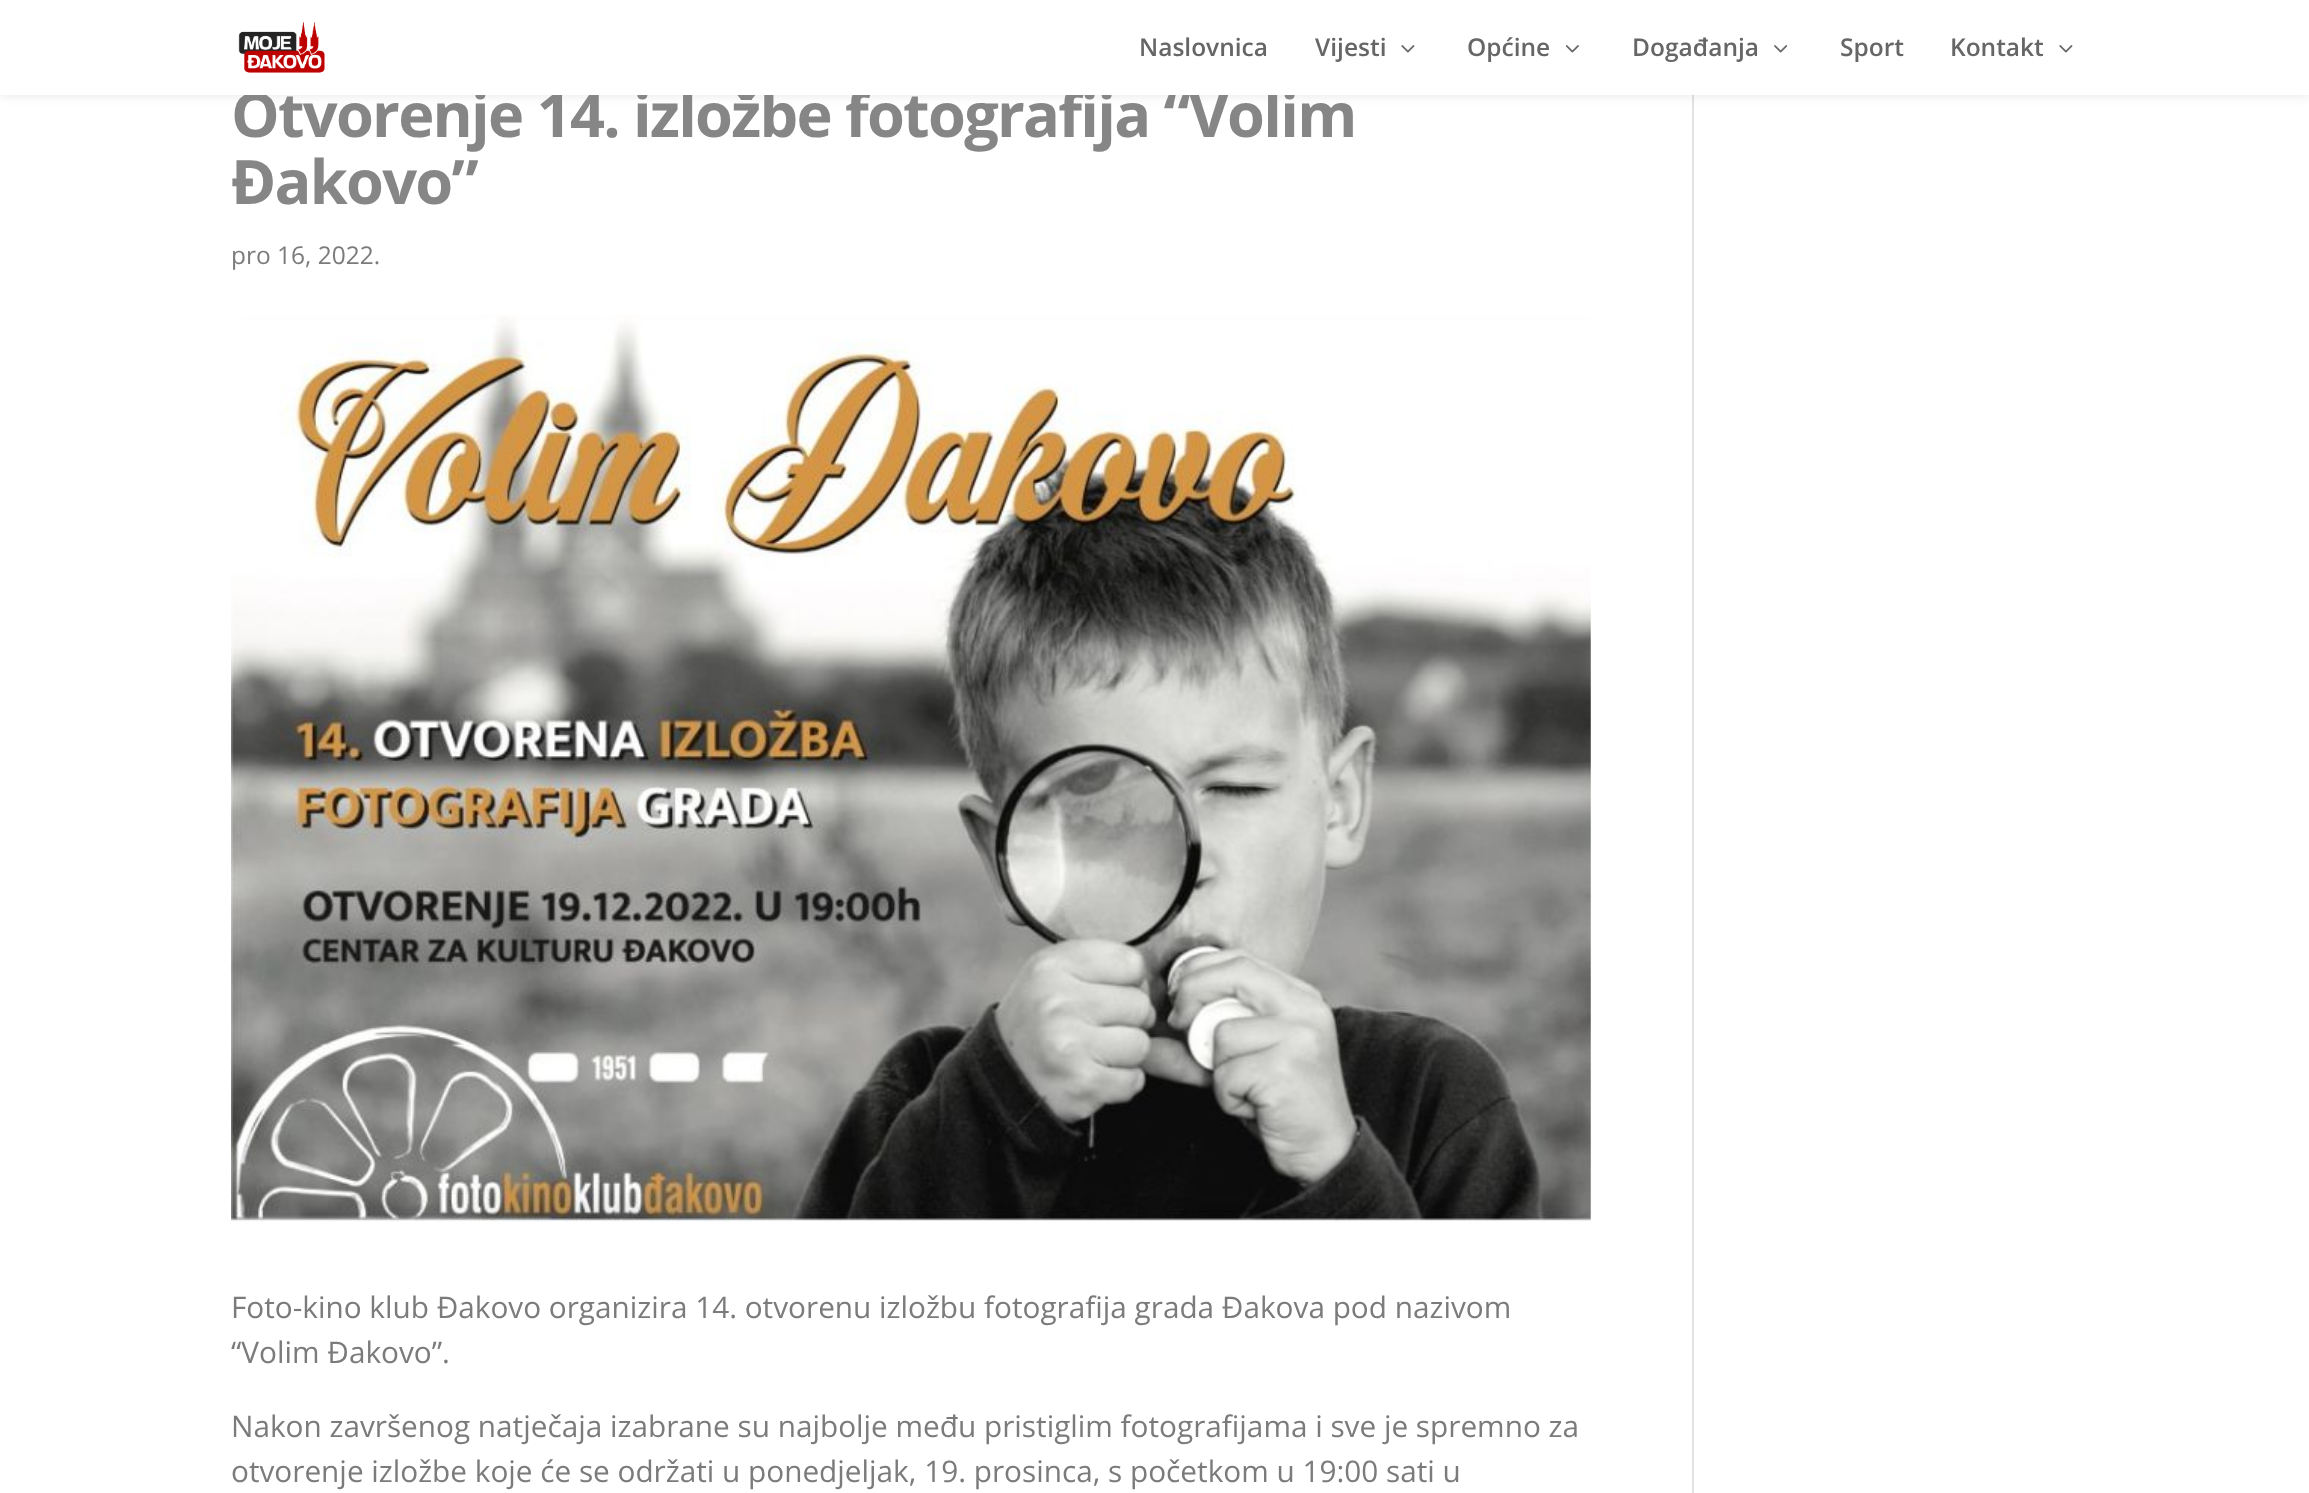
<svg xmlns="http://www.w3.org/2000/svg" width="2309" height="1493">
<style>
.a{font:bold 61.25px Open Sans;letter-spacing:-1.75px;fill:#868686}
.b{font:600 24.5px Open Sans;fill:#666}
.c{font:24.5px Open Sans;fill:#7b7b7b}
.d{font:29.75px Open Sans;fill:#7b7b7b}
</style>
<rect width="100%" height="100%" fill="#fff"/>
<path fill="#e2e2e2" d="M1692 95h2v1398H1692z"/>
<path fill="#0000001a" filter="blur(6px)" d="M0 0h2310v95H0z"/>
<image href="5.png" x="231" y="315" width="1360" height="907"/>
<text class="a" x="231" y="137">Otvorenje 14. izložbe fotografija “Volim</text>
<path fill="#fff" d="M0 0h2309v95H0z"/>
<image href="2.png" x="2059" y="45" width="14" height="8"/>
<text class="b" x="1950" y="56">Kontakt</text>
<text class="b" x="1840" y="56">Sport</text>
<image href="4.png" x="1774" y="45" width="14" height="8"/>
<text class="b" x="1632" y="56">Događanja</text>
<image href="3.png" x="1565" y="45" width="14" height="8"/>
<text class="b" x="1467" y="56">Općine</text>
<image href="2.png" x="1401" y="45" width="14" height="8"/>
<text class="b" x="1315" y="56">Vijesti</text>
<text class="b" x="1139" y="56">Naslovnica</text>
<image href="1.png" x="238" y="21" width="87" height="52"/>
<text class="a" x="231" y="204">Đakovo”</text>
<text class="c" x="231" y="264">pro 16, 2022.</text>
<text class="d" x="231" y="1318">Foto-kino klub Đakovo organizira 14. otvorenu izložbu fotografija grada Đakova pod nazivom</text>
<text class="d" x="231" y="1363">“Volim Đakovo”.</text>
<text class="d" x="231" y="1437">Nakon završenog natječaja izabrane su najbolje među pristiglim fotografijama i sve je spremno za</text>
<text class="d" x="231" y="1482">otvorenje izložbe koje će se održati u ponedjeljak, 19. prosinca, s početkom u 19:00 sati u</text>
</svg>
